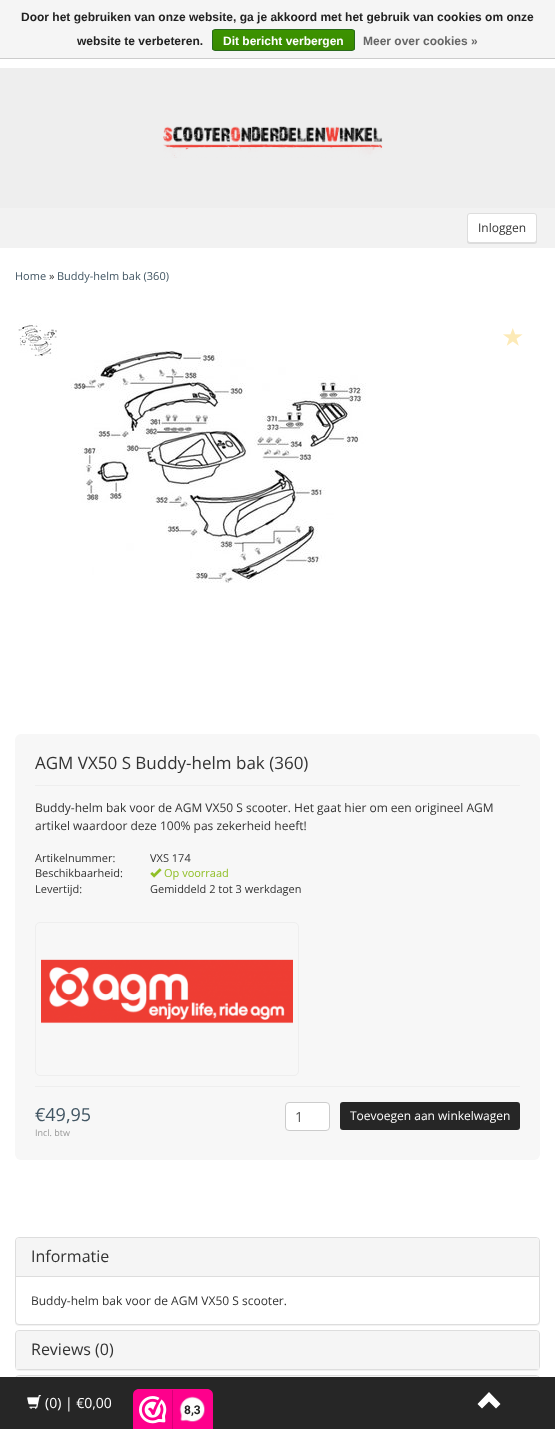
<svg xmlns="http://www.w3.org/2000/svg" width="555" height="1429">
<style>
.a{font:bold 12px Liberation Sans;fill:#222}
.b{font:bold 12px Liberation Sans;fill:#fff}
.c{font:bold 12px Liberation Sans;fill:#666}
.d{font:12px Open Sans;fill:#333}
.e{font:11px Open Sans;fill:#425663}
.f{font:11px Open Sans;fill:#333}
.g{font:17px Open Sans;fill:#333}
.h{font:11px Open Sans;fill:#90bf26}
.i{font:18px Open Sans;fill:#425663}
.j{font:9px Open Sans;fill:#999}
.k{font:14px Open Sans;fill:#555}
.l{font:12px Open Sans;fill:#fff}
.m{font:16px Open Sans;fill:#333}
.n{font:14px Open Sans;fill:#fff}
.o{font:bold 12px Roboto;fill:#222}
</style>
<defs>
<clipPath id="clip1"><rect x="212" y="29" width="143" height="22" rx="3"/></clipPath>
<linearGradient id="g1" gradientUnits="userSpaceOnUse" x1="284" y1="30" x2="284" y2="50"><stop offset="0" stop-color="#3c9300"/><stop offset="1" stop-color="#398a00"/></linearGradient>
</defs>
<rect width="100%" height="100%" fill="#fff"/>
<path fill="#f5f5f5" d="M0 0h555v58H0z"/>
<path fill="#ccc" d="M0 58h555v1H0z"/>
<g clip-path="url(#clip1)">
<path fill="url(#g1)" d="M212 30h143v20H212z"/>
</g>
<rect fill="none" stroke="#29691d" x="212.5" y="29.5" width="142" height="21" rx="2.5"/>
<path fill="#eee" d="M0 68h555v140H0z"/>
<image href="1.png" x="163" y="126" width="220" height="32"/>
<path fill="#f2f2f2" d="M0 208h555v40H0z"/>
<rect fill="#2219191a" filter="blur(0.5px)" x="467" y="214" width="70" height="30" rx="3"/>
<rect fill="#fff" stroke="#ddd" x="467.5" y="213.5" width="69" height="29" rx="2.5"/>
<image href="2.png" x="18" y="323" width="39" height="36"/>
<image href="3.png" x="503" y="328" width="20" height="18"/>
<image href="4.png" x="70" y="351" width="296" height="232"/>
<rect fill="#f7f7f7" x="15" y="734" width="525" height="426" rx="6"/>
<path fill="#eee" d="M35 785h485v1H35z"/>
<image href="5.png" x="150" y="868" width="12" height="10"/>
<rect fill="none" stroke="#eee" x="35.5" y="922.5" width="263" height="153" rx="4.5"/>
<image href="6.png" x="41" y="959" width="252" height="65"/>
<path fill="#eee" d="M35 1086h485v1H35z"/>
<rect fill="#fff" stroke="#ccc" x="285.5" y="1102.5" width="44" height="28" rx="3.5"/>
<rect fill="#262626" x="340" y="1102" width="180" height="28" rx="3"/>
<rect fill="#0000000d" filter="blur(0.5px)" x="15" y="1238" width="525" height="88" rx="4"/>
<rect fill="#fff" stroke="#ddd" x="15.5" y="1237.5" width="524" height="87" rx="3.5"/>
<path fill="#f5f5f5" d="M19 1238h517c1.5 0 3 1.5 3 3v35h-523v-35c0-1.5 1.5-3 3-3z"/>
<path fill="#ddd" d="M16 1276h523v1H16z"/>
<rect fill="#0000000d" filter="blur(0.5px)" x="15" y="1331" width="525" height="40" rx="4"/>
<rect fill="none" stroke="#ddd" x="15.5" y="1330.5" width="524" height="39" rx="3.5"/>
<path fill="#f5f5f5" d="M19 1331h517c1.5 0 3 1.5 3 3v35h-523v-35c0-1.5 1.5-3 3-3z"/>
<rect fill="none" stroke="#ddd" x="15.5" y="1375.5" width="524" height="38" rx="3.5"/>
<path fill="#f5f5f5" d="M19 1376h517c1.5 0 3 1.5 3 3v34h-523v-34c0-1.5 1.5-3 3-3z"/>
<path fill="#262626" d="M0 1377h555v52H0z"/>
<image href="7.png" x="27" y="1395" width="14" height="14"/>
<path fill="#fff" d="M477.5 1404l4.5 4.5l7-7l7 7l4.5-4.5l-11.5-12z"/>
<path fill="#fe008c" d="M139 1389h68c3.5 0 6 2.5 6 6v34h-80v-34c0-3.5 2.5-6 6-6z"/>
<image href="8.png" x="139" y="1396" width="28" height="28"/>
<path fill="#d80077" d="M172 1390h1v39H172z"/>
<image href="9.png" x="179" y="1396" width="26" height="26"/>
<text class="a" x="21" y="21">Door het gebruiken van onze website, ga je akkoord met het gebruik van cookies om onze</text>
<text class="a" x="77" y="45">website te verbeteren.</text>
<text class="b" x="223" y="45">Dit bericht verbergen</text>
<text class="c" x="363" y="45">Meer over cookies »</text>
<text class="d" x="478" y="232">Inloggen</text>
<text class="e" x="15" y="280">Home</text>
<text class="f" x="49" y="280">»</text>
<text class="e" x="57" y="280">Buddy-helm bak (360)</text>
<text class="g" x="35" y="769">AGM VX50 S Buddy-helm bak (360)</text>
<text class="d" x="35" y="812">Buddy-helm bak voor de AGM VX50 S scooter. Het gaat hier om een origineel AGM</text>
<text class="d" x="35" y="830">artikel waardoor deze 100% pas zekerheid heeft!</text>
<text class="f" x="35" y="862">Artikelnummer:</text>
<text class="f" x="150" y="862">VXS 174</text>
<text class="f" x="35" y="877">Beschikbaarheid:</text>
<text class="h" x="164" y="877">Op voorraad</text>
<text class="f" x="35" y="893">Levertijd:</text>
<text class="f" x="150" y="893">Gemiddeld 2 tot 3 werkdagen</text>
<text class="i" x="35" y="1121">€49,95</text>
<text class="j" x="35" y="1136">Incl. btw</text>
<text class="k" x="295" y="1122">1</text>
<text class="l" x="350" y="1120">Toevoegen aan winkelwagen</text>
<text class="m" x="31" y="1262">Informatie</text>
<text class="d" x="31" y="1305">Buddy-helm bak voor de AGM VX50 S scooter.</text>
<text class="m" x="31" y="1355">Reviews (0)</text>
<text class="n" x="45" y="1408">(0) | €0,00</text>
<text class="o" x="184" y="1414">8,3</text>
</svg>
